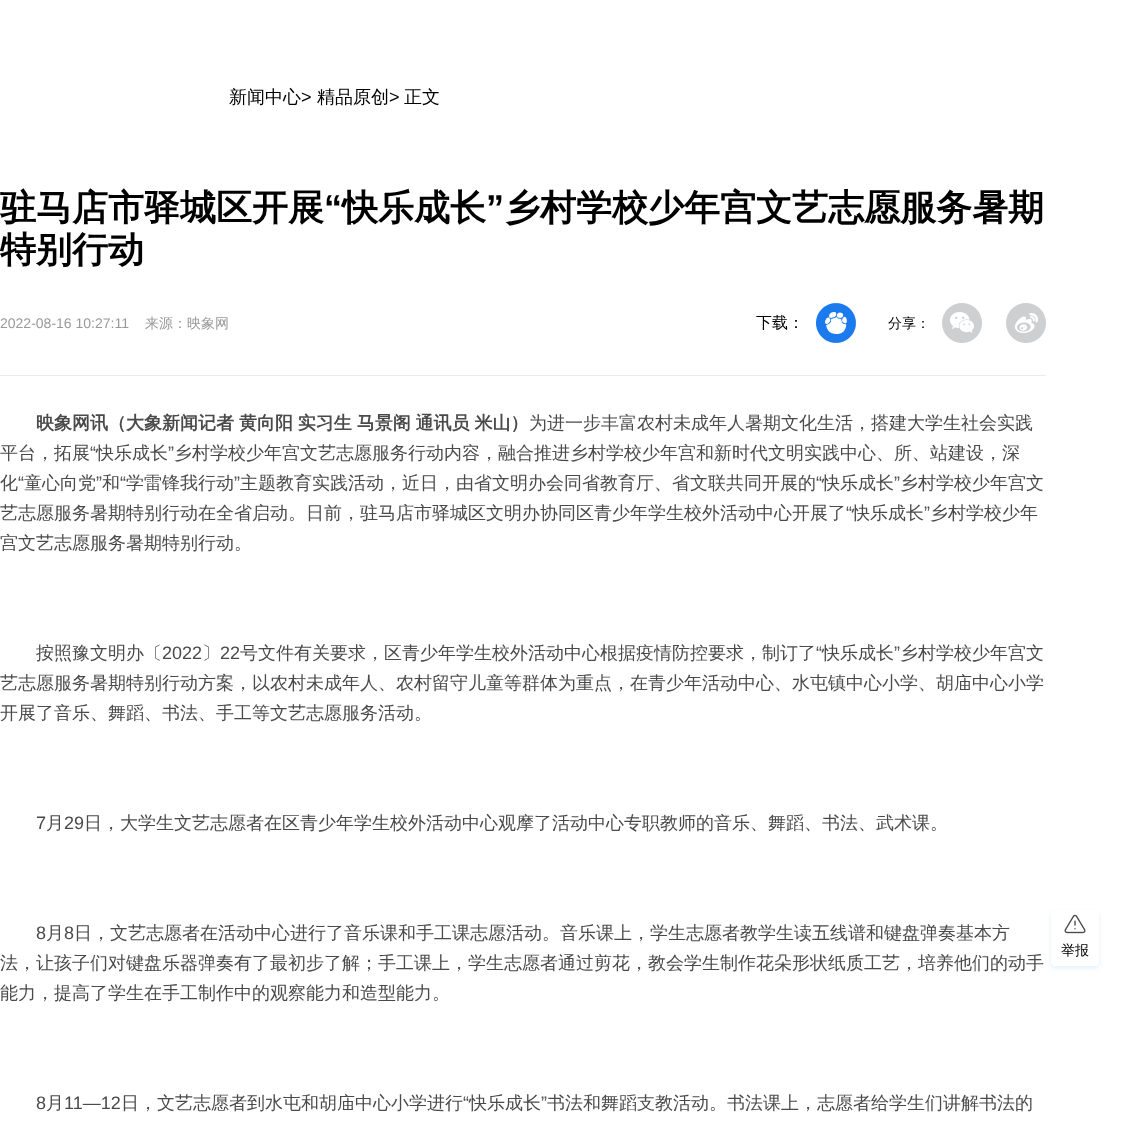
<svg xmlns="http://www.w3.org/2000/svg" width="1121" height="1126">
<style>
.a{font:500 18px WenQuanYi Zen Hei;fill:#000}
.b{font:18px Liberation Sans;fill:#000}
.c{font:bold 36px WenQuanYi Zen Hei;fill:#000}
.d{font:bold 36px Liberation Sans;fill:#000}
.e{font:14px Liberation Sans;fill:#999}
.f{font:500 14px WenQuanYi Zen Hei;fill:#999}
.g{font:500 16px WenQuanYi Zen Hei;fill:#000}
.h{font:500 14px WenQuanYi Zen Hei;fill:#000}
.i{font:bold 18px WenQuanYi Zen Hei;fill:#4a4a4a}
.j{font:500 18px WenQuanYi Zen Hei;fill:#4a4a4a}
.k{font:18px Liberation Sans;fill:#4a4a4a}
</style>
<rect width="100%" height="100%" fill="#fff"/>
<image href="1.png" x="816" y="303" width="40" height="40"/>
<image href="2.png" x="942" y="303" width="40" height="40"/>
<image href="3.png" x="1006" y="303" width="40" height="40"/>
<path fill="#ebebeb" d="M0 375h1046v1H0z"/>
<rect fill="#1c7aef1f" filter="blur(2px)" x="1051" y="912" width="48" height="56" rx="4"/>
<rect fill="#fff" x="1051" y="910" width="48" height="56" rx="4"/>
<image href="4.png" x="1064" y="914" width="22" height="20"/>
<text class="a" x="229" y="103">新闻中心</text>
<text class="b" x="301" y="103">&gt;</text>
<text class="a" x="317" y="103">精品原创</text>
<text class="b" x="389" y="103">&gt;</text>
<text class="a" x="404" y="103">正文</text>
<text class="c" x="0" y="220">驻马店市驿城区开展</text>
<text class="d" x="324" y="220">“</text>
<text class="c" x="342" y="220">快乐成长</text>
<text class="d" x="486" y="220">”</text>
<text class="c" x="504" y="220">乡村学校少年宫文艺志愿服务暑期</text>
<text class="c" x="0" y="262">特别行动</text>
<text class="e" x="0" y="328">2022-08-16 10:27:11</text>
<text class="f" x="145" y="328">来源：映象网</text>
<text class="g" x="756" y="328">下载：</text>
<text class="h" x="888" y="328">分享：</text>
<text class="i" x="36" y="429" word-spacing="-0.5">映象网讯（大象新闻记者 黄向阳 实习生 马景阁 通讯员 米山）</text>
<text class="j" x="529" y="429">为进一步丰富农村未成年人暑期文化生活，搭建大学生社会实践</text>
<text class="j" x="0" y="459">平台，拓展</text>
<text class="k" x="90" y="459">“</text>
<text class="j" x="96" y="459">快乐成长</text>
<text class="k" x="168" y="459">”</text>
<text class="j" x="174" y="459">乡村学校少年宫文艺志愿服务行动内容，融合推进乡村学校少年宫和新时代文明实践中心、所、站建设，深</text>
<text class="j" x="0" y="489">化</text>
<text class="k" x="18" y="489">“</text>
<text class="j" x="24" y="489">童心向党</text>
<text class="k" x="96" y="489">”</text>
<text class="j" x="102" y="489">和</text>
<text class="k" x="120" y="489">“</text>
<text class="j" x="126" y="489">学雷锋我行动</text>
<text class="k" x="234" y="489">”</text>
<text class="j" x="240" y="489">主题教育实践活动，近日，由省文明办会同省教育厅、省文联共同开展的</text>
<text class="k" x="816" y="489">“</text>
<text class="j" x="822" y="489">快乐成长</text>
<text class="k" x="894" y="489">”</text>
<text class="j" x="900" y="489">乡村学校少年宫文</text>
<text class="j" x="0" y="519">艺志愿服务暑期特别行动在全省启动。日前，驻马店市驿城区文明办协同区青少年学生校外活动中心开展了</text>
<text class="k" x="846" y="519">“</text>
<text class="j" x="852" y="519">快乐成长</text>
<text class="k" x="924" y="519">”</text>
<text class="j" x="930" y="519">乡村学校少年</text>
<text class="j" x="0" y="549">宫文艺志愿服务暑期特别行动。</text>
<text class="j" x="36" y="659">按照豫文明办〔</text>
<text class="k" x="162" y="659">2022</text>
<text class="j" x="202" y="659">〕</text>
<text class="k" x="220" y="659">22</text>
<text class="j" x="240" y="659">号文件有关要求，区青少年学生校外活动中心根据疫情防控要求，制订了</text>
<text class="k" x="816" y="659">“</text>
<text class="j" x="822" y="659">快乐成长</text>
<text class="k" x="894" y="659">”</text>
<text class="j" x="900" y="659">乡村学校少年宫文</text>
<text class="j" x="0" y="689">艺志愿服务暑期特别行动方案，以农村未成年人、农村留守儿童等群体为重点，在青少年活动中心、水屯镇中心小学、胡庙中心小学</text>
<text class="j" x="0" y="719">开展了音乐、舞蹈、书法、手工等文艺志愿服务活动。</text>
<text class="k" x="36" y="829">7</text>
<text class="j" x="46" y="829">月</text>
<text class="k" x="64" y="829">29</text>
<text class="j" x="84" y="829">日，大学生文艺志愿者在区青少年学生校外活动中心观摩了活动中心专职教师的音乐、舞蹈、书法、武术课。</text>
<text class="k" x="36" y="939">8</text>
<text class="j" x="46" y="939">月</text>
<text class="k" x="64" y="939">8</text>
<text class="j" x="74" y="939">日，文艺志愿者在活动中心进行了音乐课和手工课志愿活动。音乐课上，学生志愿者教学生读五线谱和键盘弹奏基本方</text>
<text class="j" x="0" y="969">法，让孩子们对键盘乐器弹奏有了最初步了解；手工课上，学生志愿者通过剪花，教会学生制作花朵形状纸质工艺，培养他们的动手</text>
<text class="j" x="0" y="999">能力，提高了学生在手工制作中的观察能力和造型能力。</text>
<text class="k" x="36" y="1109">8</text>
<text class="j" x="46" y="1109">月</text>
<text class="k" x="64" y="1109">11—12</text>
<text class="j" x="121" y="1109">日，文艺志愿者到水屯和胡庙中心小学进行</text>
<text class="k" x="463" y="1109">“</text>
<text class="j" x="469" y="1109">快乐成长</text>
<text class="k" x="541" y="1109">”</text>
<text class="j" x="547" y="1109">书法和舞蹈支教活动。书法课上，志愿者给学生们讲解书法的</text>
<text class="h" x="1061" y="955">举报</text>
</svg>
